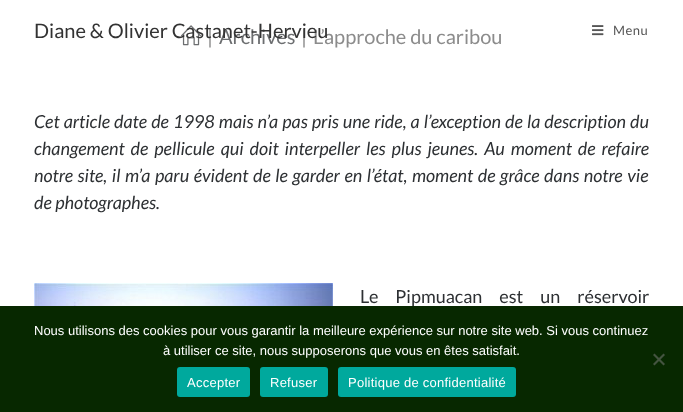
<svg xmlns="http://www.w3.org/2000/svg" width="683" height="412">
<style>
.a{font:13px Lato;letter-spacing:0.5px;fill:#555}
.b{font:20px Lato;fill:#8c8c8c}
.c{font:20px Lato;fill:#6c6e70}
.d{font:20px Lato;fill:#333}
.e{font:italic 18px Lato;fill:#2d3033}
.f{font:18px Lato;fill:#2d3033}
.g{font:13px Liberation Sans;fill:#fff}
.h{font:13px Liberation Sans;letter-spacing:0.25px;fill:#fff}
</style>
<rect width="100%" height="100%" fill="#fff"/>
<image href="1.png" x="592" y="25" width="12" height="11"/>
<image href="2.png" x="181" y="25" width="20" height="21"/>
<image href="3.png" x="34" y="283" width="299" height="23"/>
<text class="a" x="613" y="35">Menu</text>
<text class="b" x="207" y="44">|</text>
<text class="c" x="219" y="44">Archives</text>
<text class="b" x="301" y="44">|</text>
<text class="b" x="313" y="44">L’approche du caribou</text>
<text class="d" x="34" y="38">Diane &amp; Olivier Castanet-Hervieu</text>
<text class="e" x="34" y="128" word-spacing="0.6">Cet article date de 1998 mais n’a pas pris une ride, a l’exception de la description du</text>
<text class="e" x="34" y="155" word-spacing="2.5">changement de pellicule qui doit interpeller les plus jeunes. Au moment de refaire</text>
<text class="e" x="34" y="182" word-spacing="1.1">notre site, il m’a paru évident de le garder en l’état, moment de grâce dans notre vie</text>
<text class="e" x="34" y="209">de photographes.</text>
<text class="f" x="360" y="303" word-spacing="13.5">Le Pipmuacan est un réservoir</text>
<path fill="#072800" d="M0 306h683v106H0z"/>
<text class="g" x="34" y="335">Nous utilisons des cookies pour vous garantir la meilleure expérience sur notre site web. Si vous continuez</text>
<text class="g" x="163" y="355">à utiliser ce site, nous supposerons que vous en êtes satisfait.</text>
<path fill="#445440" d="M663.5 353.5l1.5 1.5l-10.5 10.5l-1.5-1.5z"/>
<path fill="#445440" d="M653 355l1.5-1.5l10.5 10.5l-1.5 1.5z"/>
<rect fill="#00a99d" x="177" y="367" width="73" height="30" rx="3"/>
<text class="h" x="187" y="387">Accepter</text>
<rect fill="#00a99d" x="260" y="367" width="68" height="30" rx="3"/>
<text class="h" x="270" y="387">Refuser</text>
<rect fill="#00a99d" x="338" y="367" width="178" height="30" rx="3"/>
<text class="h" x="348" y="387">Politique de confidentialité</text>
</svg>
